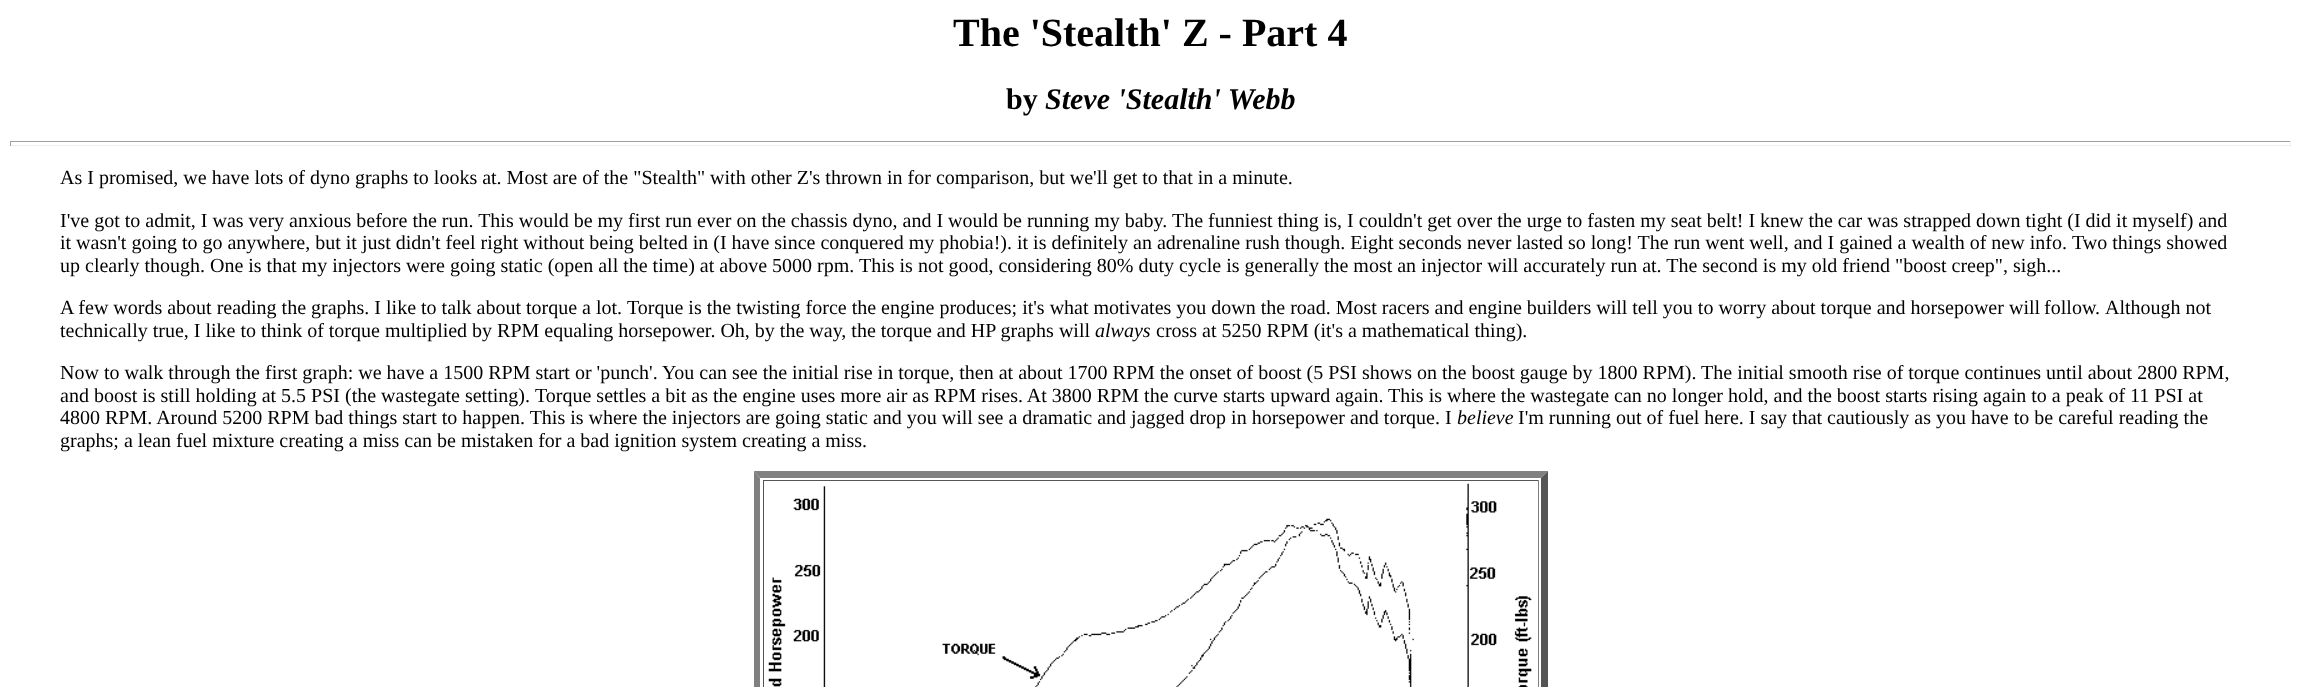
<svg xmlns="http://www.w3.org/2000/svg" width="2301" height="687">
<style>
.a{font:bold 40px Liberation Serif;fill:#000}
.b{font:bold 30px Liberation Serif;fill:#000}
.c{font:italic bold 30px Liberation Serif;fill:#000}
.d{font:20px Liberation Serif;fill:#000}
.e{font:italic 20px Liberation Serif;fill:#000}
</style>
<rect width="100%" height="100%" fill="#fff"/>
<path fill="#9f9f9f" d="M10 141h2281v1H10z"/>
<path fill="#eee" d="M2290 141h1v5H2290z"/>
<path fill="#eee" d="M10 145h2281v1H10z"/>
<path fill="#9f9f9f" d="M10 141h1v5H10z"/>
<path fill="#808080" d="M754 471h794l-7 7h-781z"/>
<path fill="#555" d="M1548 471v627l-7-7v-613z"/>
<path fill="#808080" d="M754 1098v-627l6 7v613z"/>
<path fill="#555" d="M763 480h776v1H763z"/>
<path fill="#808080" d="M1538 480h1v207H1538z"/>
<path fill="#555" d="M763 480h1v207H763z"/>
<image href="1.png" x="768" y="483" width="764" height="204"/>
<text class="a" x="953" y="46">The 'Stealth' Z - Part 4</text>
<text class="b" x="1006" y="109">by</text>
<text class="c" x="1045" y="109">Steve 'Stealth' Webb</text>
<text class="d" x="60" y="184">As I promised, we have lots of dyno graphs to looks at. Most are of the "Stealth" with other Z's thrown in for comparison, but we'll get to that in a minute.</text>
<text class="d" x="60" y="227">I've got to admit, I was very anxious before the run. This would be my first run ever on the chassis dyno, and I would be running my baby.</text>
<text class="d" x="1172" y="227">The funniest thing is, I couldn't get over the urge to fasten my seat belt! I knew the car was strapped down tight (I did it myself) and</text>
<text class="d" x="60" y="249">it wasn't going to go anywhere, but it just didn't feel right without being belted in (I have since conquered my phobia!). it is definitely an adrenaline rush though. Eight seconds never lasted so long! The run went well, and I gained a wealth of new info.</text>
<text class="d" x="2072" y="249">Two things showed</text>
<text class="d" x="60" y="272">up clearly though. One is that my injectors were going static (open all the time) at above 5000 rpm.</text>
<text class="d" x="859" y="272">This is not good, considering 80% duty cycle is generally the most an injector will accurately run at. The second is my old friend "boost creep", sigh...</text>
<text class="d" x="60" y="314">A few words about reading the graphs. I like to talk about torque a lot.</text>
<text class="d" x="627" y="314">Torque is the twisting force the engine produces; it's what motivates you down the road. Most racers and engine builders will tell you to worry about torque and horsepower</text>
<text class="d" x="2009" y="314" word-spacing="-1">will follow.</text>
<text class="d" x="2105" y="314">Although not</text>
<text class="d" x="60" y="337">technically true, I like to think of torque multiplied by RPM equaling horsepower. Oh, by the way, the torque and HP graphs will</text>
<text class="e" x="1095" y="337">always</text>
<text class="d" x="1156" y="337">cross at 5250 RPM (it's a mathematical thing).</text>
<text class="d" x="60" y="379">Now to walk through the first graph: we have a 1500 RPM start or 'punch'. You can see the initial rise in torque, then at about 1700 RPM the onset of boost (5 PSI shows on the boost gauge by 1800 RPM). The initial smooth rise of torque continues until about 2800 RPM,</text>
<text class="d" x="60" y="402">and boost is still holding at 5.5 PSI (the wastegate setting).</text>
<text class="d" x="535" y="402">Torque settles a bit as the engine uses more air as RPM rises. At 3800 RPM the curve starts upward again. This is where the wastegate can no longer hold, and the boost starts rising again to a peak of 11 PSI at</text>
<text class="d" x="60" y="424">4800 RPM. Around 5200 RPM bad things start to happen. This is where the injectors are going static and you will see a dramatic and jagged drop in horsepower and torque. I</text>
<text class="e" x="1457" y="424">believe</text>
<text class="d" x="1518" y="424">I'm running out of fuel here. I say that cautiously as you have to be careful reading the</text>
<text class="d" x="60" y="447">graphs; a lean fuel mixture creating a miss can be mistaken for a bad ignition system creating a miss.</text>
</svg>
